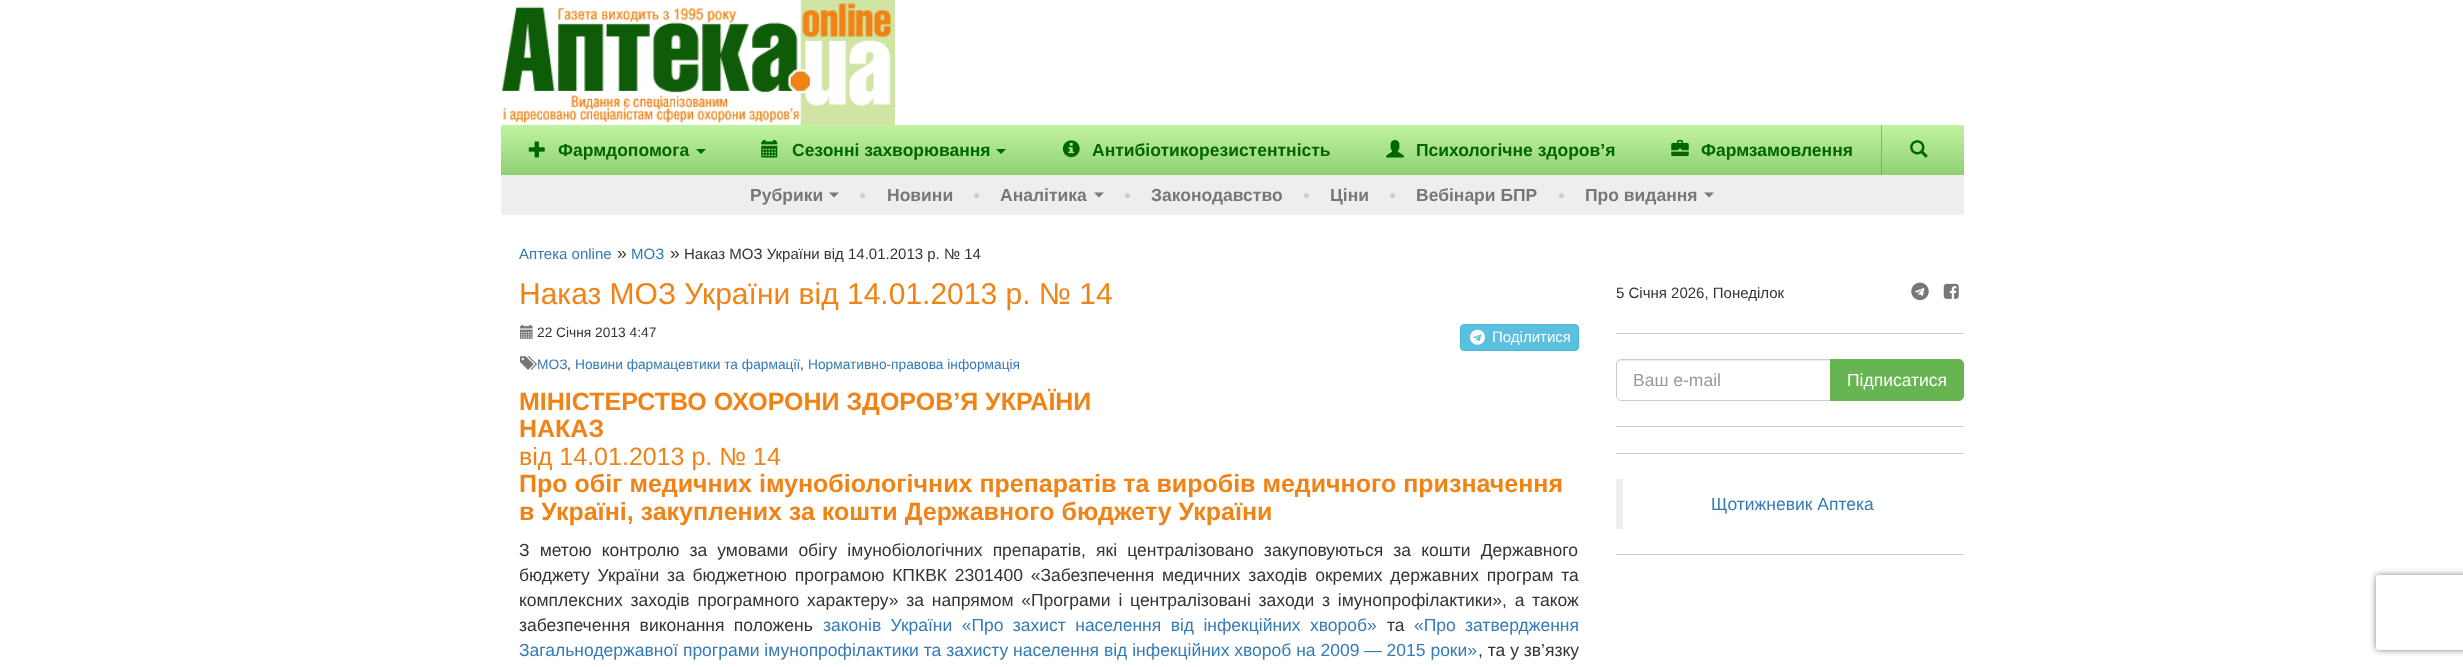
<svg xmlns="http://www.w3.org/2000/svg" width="2463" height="667">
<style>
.a{font:bold 17.5px Liberation Sans;fill:#060}
.b{font:bold 17.5px Liberation Sans;fill:#777}
.c{font:15px Liberation Sans;fill:#337ab7}
.d{font:17.5px Liberation Sans;fill:#333}
.e{font:15px Liberation Sans;fill:#333}
.f{font:30px Liberation Sans;fill:#f08316}
.g{font:13.75px Liberation Sans;fill:#333}
.h{font:15px Liberation Sans;fill:#fff}
.i{font:13.75px Liberation Sans;fill:#337ab7}
.j{font:bold 25px Liberation Sans;fill:#f08316}
.k{font:25px Liberation Sans;fill:#f08316}
.l{font:17.5px Liberation Sans;fill:#337ab7}
.m{font:17.5px Liberation Sans;fill:#999}
.n{font:17.5px Liberation Sans;fill:#fff}
</style>
<defs>
<linearGradient id="g1" gradientUnits="userSpaceOnUse" x1="1233" y1="125" x2="1233" y2="215"><stop offset="0" stop-color="#c1f3a0"/><stop offset="1" stop-color="#67b552"/></linearGradient>
<linearGradient id="g2" gradientUnits="userSpaceOnUse" x1="1233" y1="125" x2="1233" y2="215"><stop offset="0" stop-color="#7dc064"/><stop offset="1" stop-color="#5eab48"/></linearGradient>
<clipPath id="clip1"><path d="M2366 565h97v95h-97zm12.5 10h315c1.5 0 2.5 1 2.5 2.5v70c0 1.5-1 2.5-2.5 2.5h-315c-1.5 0-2.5-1-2.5-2.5v-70c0-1.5 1-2.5 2.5-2.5z" clip-rule="evenodd"/></clipPath>
</defs>
<rect width="100%" height="100%" fill="#fff"/>
<image href="1.png" x="502" y="0" width="393" height="125"/>
<path fill="url(#g1)" d="M501 125h1463v50H501z"/>
<path fill="url(#g2)" d="M1881 125h1v50H1881z"/>
<image href="2.png" x="528" y="141" width="17" height="17"/>
<path fill="#060" d="M696 149h10l-5 5z"/>
<image href="3.png" x="761" y="140" width="17" height="18"/>
<path fill="#060" d="M996 149h10l-5 5z"/>
<image href="4.png" x="1062" y="140" width="18" height="18"/>
<image href="5.png" x="1386" y="140" width="18" height="18"/>
<image href="6.png" x="1671" y="140" width="18" height="17"/>
<image href="7.png" x="1910" y="140" width="18" height="18"/>
<path fill="#eee" d="M501 175h1463v40H501z"/>
<path fill="#777" d="M829 192.5h10l-5 5z"/>
<circle fill="#ccc" cx="862.5" cy="195.5" r="2.5"/>
<circle fill="#ccc" cx="976.5" cy="195.5" r="2.5"/>
<path fill="#777" d="M1094 192.5h10l-5 5z"/>
<circle fill="#ccc" cx="1127.5" cy="195.5" r="2.5"/>
<circle fill="#ccc" cx="1306.5" cy="195.5" r="2.5"/>
<circle fill="#ccc" cx="1392.5" cy="195.5" r="2.5"/>
<circle fill="#ccc" cx="1561.5" cy="195.5" r="2.5"/>
<path fill="#777" d="M1704 192.5h10l-5 5z"/>
<image href="8.png" x="520" y="325" width="13" height="14"/>
<rect fill="#5bc0de" stroke="#46b8da" x="1460.5" y="324.5" width="118" height="26" rx="3.5"/>
<image href="9.png" x="1470" y="329" width="15" height="16"/>
<image href="10.png" x="520" y="356" width="17" height="14"/>
<image href="11.png" x="1911" y="282" width="18" height="19"/>
<image href="12.png" x="1943" y="283" width="16" height="16"/>
<path fill="#ccc" d="M1616 333h348v1H1616z"/>
<path fill="#ececec" d="M1621 361h209v-1h-210c-2 1-2 3-2 5c0-2 1-4 3-4z"/>
<path fill="none" stroke="#ccc" d="M1621 359.5h209.5v41h-209.5c-2.5 0-4.5-2-4.5-4.5v-32c0-2.5 2-4.5 4.5-4.5z"/>
<path fill="#67b552" stroke="#67b552" d="M1830.5 359.5h128.5c2.5 0 4.5 2 4.5 4.5v32c0 2.5-2 4.5-4.5 4.5h-128.5z"/>
<path fill="#ccc" d="M1616 426h348v1H1616z"/>
<path fill="#ccc" d="M1616 453h348v1H1616z"/>
<path fill="#eee" d="M1616 479h7v50H1616z"/>
<path fill="#ccc" d="M1616 554h348v1H1616z"/>
<g clip-path="url(#clip1)">
<rect fill="#808080" filter="blur(3px)" x="2376" y="575" width="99" height="75" rx="2.5"/>
</g>
<text class="a" x="558" y="156">Фармдопомога</text>
<text class="a" x="792" y="156">Сезонні захворювання</text>
<text class="a" x="1092" y="156">Антибіотикорезистентність</text>
<text class="a" x="1416" y="156">Психологічне здоров’я</text>
<text class="a" x="1701" y="156">Фармзамовлення</text>
<text class="b" x="750" y="201">Рубрики</text>
<text class="b" x="887" y="201">Новини</text>
<text class="b" x="1000" y="201">Аналітика</text>
<text class="b" x="1151" y="201">Законодавство</text>
<text class="b" x="1330" y="201">Ціни</text>
<text class="b" x="1416" y="201">Вебінари БПР</text>
<text class="b" x="1585" y="201">Про видання</text>
<text class="c" x="519" y="259">Аптека online</text>
<text class="d" x="617" y="259">»</text>
<text class="c" x="631" y="259">МОЗ</text>
<text class="d" x="670" y="259">»</text>
<text class="e" x="684" y="259">Наказ МОЗ України від 14.01.2013 р. № 14</text>
<text class="f" x="519" y="304">Наказ МОЗ України від 14.01.2013 р. № 14</text>
<text class="g" x="537" y="337">22 Січня 2013 4:47</text>
<text class="h" x="1492" y="342">Поділитися</text>
<text class="i" x="537" y="369">МОЗ</text>
<text class="g" x="567" y="369">,</text>
<text class="i" x="575" y="369">Новини фармацевтики та фармації</text>
<text class="g" x="800" y="369">,</text>
<text class="i" x="808" y="369">Нормативно-правова інформація</text>
<text class="j" x="519" y="410">МІНІСТЕРСТВО ОХОРОНИ ЗДОРОВ’Я УКРАЇНИ</text>
<text class="j" x="519" y="437">НАКАЗ</text>
<text class="k" x="519" y="465">від 14.01.2013 р. № 14</text>
<text class="j" x="519" y="492">Про обіг медичних імунобіологічних препаратів та виробів медичного призначення</text>
<text class="j" x="519" y="520">в Україні, закуплених за кошти Державного бюджету України</text>
<text class="d" x="519" y="556" word-spacing="5.25">З метою контролю за умовами обігу імунобіологічних препаратів, які централізовано закуповуються за кошти Державного</text>
<text class="d" x="519" y="581" word-spacing="2.9">бюджету України за бюджетною програмою КПКВК 2301400 «Забезпечення медичних заходів окремих державних програм та</text>
<text class="d" x="519" y="606" word-spacing="2.9">комплексних заходів програмного характеру» за напрямом «Програми і централізовані заходи з імунопрофілактики», а також</text>
<text class="d" x="519" y="631" word-spacing="4.5">забезпечення виконання положень</text>
<text class="l" x="823" y="631" word-spacing="4.5">законів України «Про захист населення від інфекційних хвороб»</text>
<text class="d" x="1387" y="631">та</text>
<text class="l" x="1414" y="631">«Про</text>
<text class="l" x="1465" y="631">затвердження</text>
<text class="l" x="519" y="656">Загальнодержавної програми імунопрофілактики та захисту населення від інфекційних хвороб на 2009 — 2015 роки»</text>
<text class="d" x="1478" y="656">, та у зв’язку</text>
<text class="e" x="1616" y="298">5 Січня 2026, Понеділок</text>
<text class="m" x="1633" y="386">Ваш e-mail</text>
<text class="n" x="1847" y="386">Підписатися</text>
<text class="l" x="1711" y="510">Щотижневик Аптека</text>
</svg>
